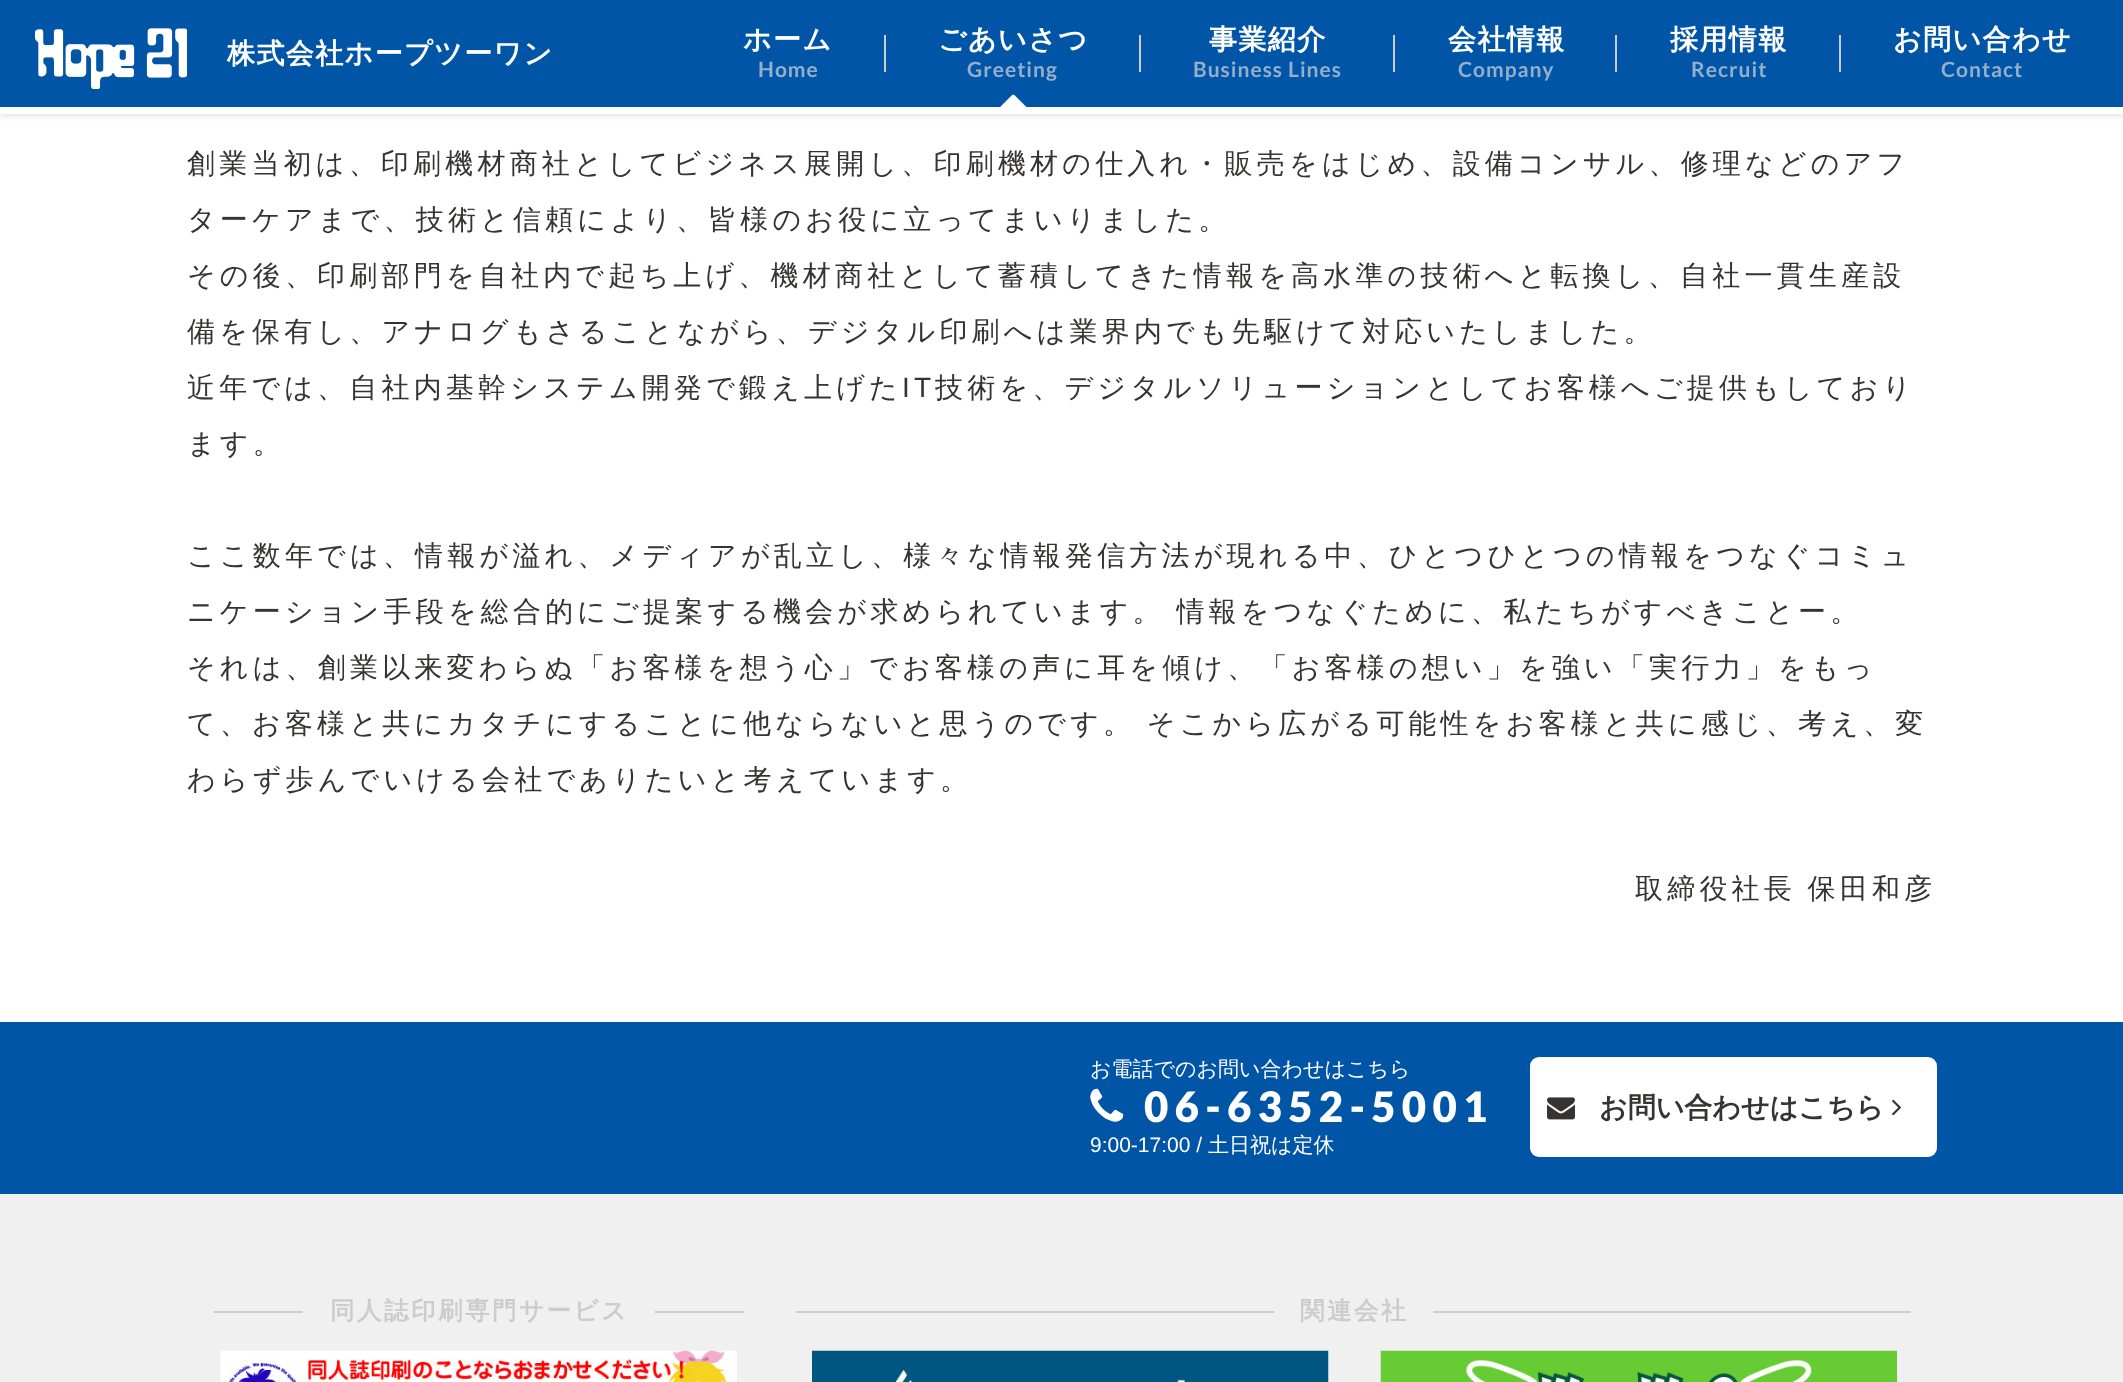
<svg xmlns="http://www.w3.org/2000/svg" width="2123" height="1382">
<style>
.a{font:bold 28px WenQuanYi Zen Hei;letter-spacing:1.4px;fill:#fff}
.b{font:bold 21px Lato;letter-spacing:1px;fill:#93afcb}
.c{font:500 28px WenQuanYi Zen Hei;letter-spacing:4.2px;fill:#373333}
.d{font:28px Liberation Sans;letter-spacing:4.2px;fill:#373333}
.e{font:500 21px WenQuanYi Zen Hei;fill:#fff}
.f{font:900 42px Lato;letter-spacing:6.25px;fill:#fff}
.g{font:21px Liberation Sans;fill:#fff}
.h{font:bold 28px WenQuanYi Zen Hei;fill:#373333}
.i{font:bold 24.5px WenQuanYi Zen Hei;letter-spacing:2.5px;fill:#ccc}
</style>
<rect width="100%" height="100%" fill="#fff"/>
<path fill="#e8e8e8" filter="blur(2.5px)" d="M0 4h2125v113H0z"/>
<path fill="#0055a6" d="M0 0h2123v107H0z"/>
<path fill="#fff" d="M0 107h2123v7H0z"/>
<image href="1.png" x="35" y="28" width="152" height="61"/>
<path fill="#ccc" d="M884 35h2v37H884z"/>
<path fill="#ccc" d="M1139 35h2v37H1139z"/>
<image href="2.png" x="1000" y="94" width="27" height="13"/>
<path fill="#ccc" d="M1393 35h2v37H1393z"/>
<path fill="#ccc" d="M1615 35h2v37H1615z"/>
<path fill="#ccc" d="M1839 35h2v37H1839z"/>
<path fill="#0055a6" d="M0 1022h2123v172H0z"/>
<image href="3.png" x="1090" y="1088" width="34" height="34"/>
<rect fill="#fff" x="1530" y="1057" width="407" height="100" rx="9"/>
<image href="4.png" x="1547" y="1097" width="28" height="23"/>
<image href="5.png" x="1892" y="1099" width="9" height="17"/>
<path fill="#f0f0f0" d="M0 1194h2123v188H0z"/>
<path fill="#ccc" d="M214 1311h530v2H214z"/>
<path fill="#f0f0f0" d="M303 1311h352v2H303z"/>
<image href="6.png" x="220" y="1350" width="517" height="32"/>
<path fill="#ccc" d="M796 1311h1115v2H796z"/>
<path fill="#f0f0f0" d="M1274 1311h159v2H1274z"/>
<image href="7.png" x="812" y="1350" width="517" height="32"/>
<image href="8.png" x="1380" y="1350" width="517" height="32"/>
<text class="a" x="227" y="63">株式会社ホープツーワン</text>
<text class="a" x="743" y="49">ホーム</text>
<text class="b" x="758" y="77">Home</text>
<text class="a" x="938" y="49">ごあいさつ</text>
<text class="b" x="967" y="77">Greeting</text>
<text class="a" x="1209" y="49">事業紹介</text>
<text class="b" x="1193" y="77">Business Lines</text>
<text class="a" x="1448" y="49">会社情報</text>
<text class="b" x="1458" y="77">Company</text>
<text class="a" x="1670" y="49">採用情報</text>
<text class="b" x="1691" y="77">Recruit</text>
<text class="a" x="1893" y="49">お問い合わせ</text>
<text class="b" x="1941" y="77">Contact</text>
<text class="c" x="187" y="173">創業当初は、印刷機材商社としてビジネス展開し、印刷機材の仕入れ・販売をはじめ、設備コンサル、修理などのアフ</text>
<text class="c" x="187" y="229">ターケアまで、技術と信頼により、皆様のお役に立ってまいりました。</text>
<text class="c" x="187" y="285">その後、印刷部門を自社内で起ち上げ、機材商社として蓄積してきた情報を高水準の技術へと転換し、自社一貫生産設</text>
<text class="c" x="187" y="341">備を保有し、アナログもさることながら、デジタル印刷へは業界内でも先駆けて対応いたしました。</text>
<text class="c" x="187" y="397">近年では、自社内基幹システム開発で鍛え上げた</text>
<text class="d" x="902" y="397">IT</text>
<text class="c" x="935" y="397">技術を、デジタルソリューションとしてお客様へご提供もしており</text>
<text class="c" x="187" y="453">ます。</text>
<text class="c" x="187" y="565">ここ数年では、情報が溢れ、メディアが乱立し、様々な情報発信方法が現れる中、ひとつひとつの情報をつなぐコミュ</text>
<text class="c" x="187" y="621" word-spacing="-1">ニケーション手段を総合的にご提案する機会が求められています。 情報をつなぐために、私たちがすべきことー。</text>
<text class="c" x="187" y="677">それは、創業以来変わらぬ「お客様を想う心」でお客様の声に耳を傾け、「お客様の想い」を強い「実行力」をもっ</text>
<text class="c" x="187" y="733" word-spacing="-1">て、お客様と共にカタチにすることに他ならないと思うのです。 そこから広がる可能性をお客様と共に感じ、考え、変</text>
<text class="c" x="187" y="789">わらず歩んでいける会社でありたいと考えています。</text>
<text class="c" x="1635" y="898" word-spacing="-1">取締役社長 保田和彦</text>
<text class="e" x="1090" y="1076">お電話でのお問い合わせはこちら</text>
<text class="f" x="1144" y="1122">06-6352-5001</text>
<text class="g" x="1090" y="1152">9:00-17:00 /</text>
<text class="e" x="1208" y="1152">土日祝は定休</text>
<text class="h" x="1599" y="1117">お問い合わせはこちら</text>
<text class="i" x="330" y="1319">同人誌印刷専門サービス</text>
<text class="i" x="1300" y="1319">関連会社</text>
</svg>
